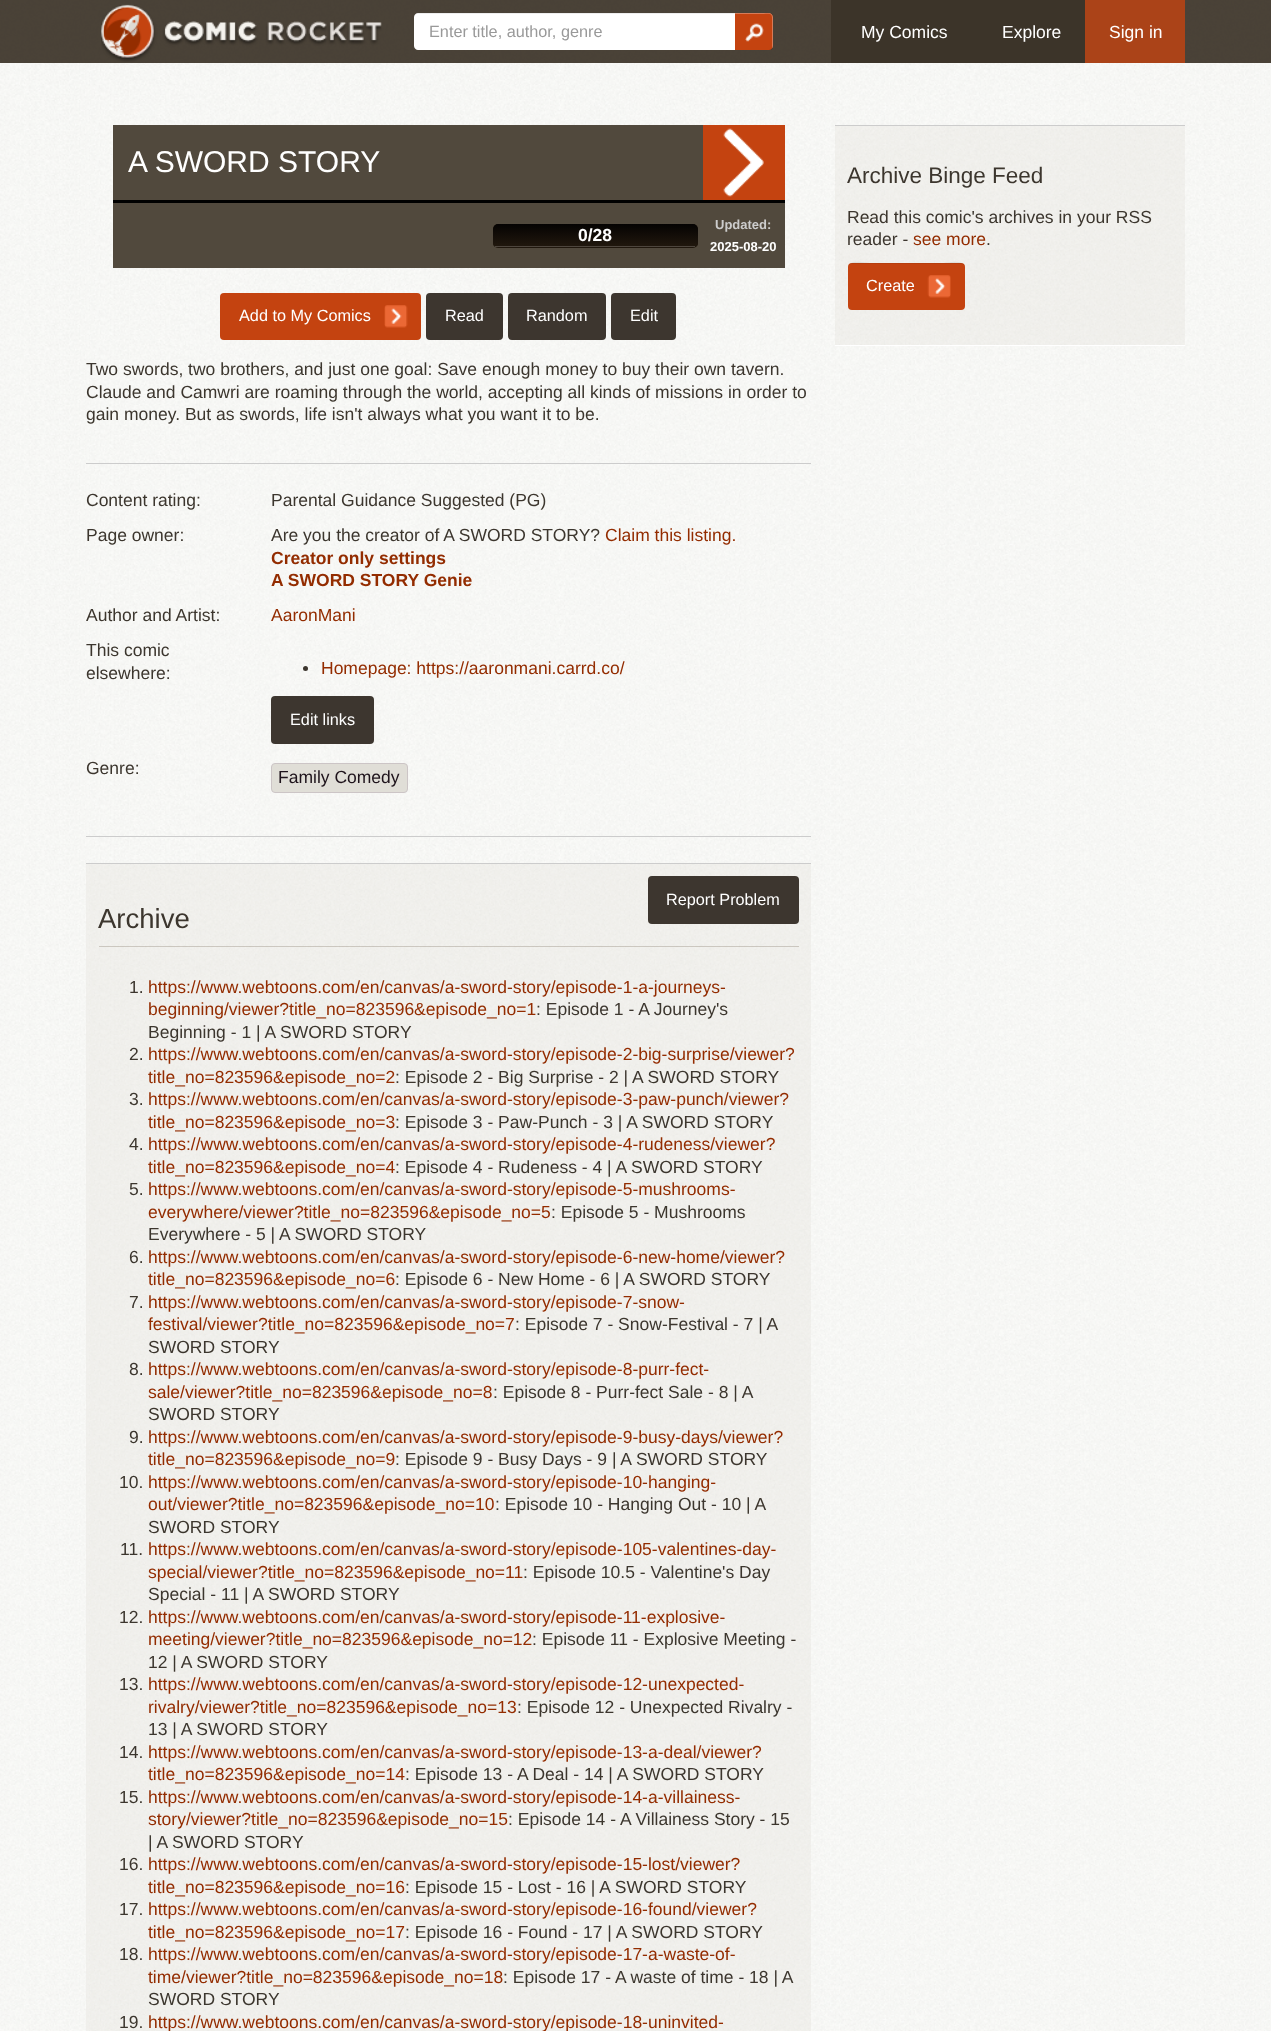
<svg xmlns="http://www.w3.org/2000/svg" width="1271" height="2031">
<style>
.a{font:16.25px Liberation Sans;fill:#999}
.b{font:17.5px Liberation Sans;fill:#fff}
.c{font:30px Liberation Sans;fill:#fff}
.d{font:bold 17.5px Liberation Sans;fill:#fff}
.e{font:bold 13px Liberation Sans;fill:#ccc}
.f{font:bold 13px Liberation Sans;fill:#fff}
.g{font:16.25px Liberation Sans;fill:#fff}
.h{font:17.5px Liberation Sans;fill:#3c362e}
.i{font:17.5px Liberation Sans;fill:#932c00}
.j{font:bold 17.5px Liberation Sans;fill:#932c00}
.k{font:17.5px Liberation Sans;fill:#1e131b}
.l{font:27.5px Liberation Sans;fill:#3c362e}
.m{font:22.5px Liberation Sans;fill:#3c362e}
</style>
<defs>
<clipPath id="clip1"><rect x="493" y="224" width="205" height="24" rx="5"/></clipPath>
<linearGradient id="g1" gradientUnits="userSpaceOnUse" x1="595" y1="224" x2="595" y2="246"><stop offset="0" stop-color="#050302"/><stop offset="1" stop-color="#20170d"/></linearGradient>
</defs>
<rect width="100%" height="100%" fill="#f7f7f5"/>
<image href="1.png" x="0" y="0" width="1270" height="2031"/>
<path fill="#1e1408cc" d="M0 0h1271v63H0z"/>
<image href="2.png" x="101" y="4" width="281" height="58"/>
<path fill="#fff" d="M418 13h317v37h-317c-2 0-4-2-4-4v-29c0-2 2-4 4-4z"/>
<path fill="#00000012" d="M418 14h317v-1h-317c-2 0-4 2-4 4v1c0-3 1-4 4-4z"/>
<rect fill="#0000004d" filter="blur(0.5px)" x="735" y="13" width="38" height="37" rx="4"/>
<path fill="#c44310" d="M735 13h34c2 0 4 2 4 4v29c0 2-2 4-4 4h-34z"/>
<path fill="#ffffff4d" d="M735 14h28.5c4.5 0 8.5-1.5 8.5 4v30.5c.5-.5 1-1.5 1-2.5v-29c0-2-2-4-4-4h-34z"/>
<image href="3.png" x="745" y="23" width="19" height="19"/>
<path fill="#3c3429" d="M831 0h254v63H831z"/>
<path fill="#ab4318" d="M1085 0h100v63H1085z"/>
<path fill="#51493d" d="M113 125h672v143H113z"/>
<path fill="#c44310" d="M703 125h82v75H703z"/>
<image href="4.png" x="723" y="128" width="41" height="69"/>
<path fill="#000" d="M113 200h672v3H113z"/>
<rect fill="#20170d" x="493" y="224" width="205" height="24" rx="5"/>
<g clip-path="url(#clip1)">
<path fill="url(#g1)" d="M498 224h195c3 0 5 2 5 5v17h-205v-17c0-3 2-5 5-5z"/>
</g>
<path fill="#4d453d" d="M495 246h200v1H495z"/>
<rect fill="#c44310" x="220" y="293" width="201" height="47" rx="4"/>
<image href="5.png" x="384" y="305" width="24" height="23"/>
<rect fill="#3d362f" x="426" y="293" width="77" height="47" rx="4"/>
<rect fill="#3d362f" x="508" y="293" width="98" height="47" rx="4"/>
<rect fill="#3d362f" x="611" y="293" width="65" height="47" rx="4"/>
<path fill="#ccc" d="M86 463h725v1H86z"/>
<path fill="#ccc" d="M86 836h725v1H86z"/>
<circle fill="#3c362e" cx="305.5" cy="668.5" r="2.5"/>
<rect fill="#3d362f" x="271" y="696" width="103" height="48" rx="4"/>
<rect fill="#e0ded7" stroke="#ccc5c6" x="271.5" y="763.5" width="136" height="29" rx="3.5"/>
<path fill="#e0ded74d" d="M86 864h725v1167H86z"/>
<path fill="#ccc" d="M86 863h725v1H86z"/>
<rect fill="#3d362f" x="648" y="876" width="151" height="48" rx="4"/>
<path fill="#766b5b4d" d="M99 946h700v1H99z"/>
<path fill="#e0ded74d" d="M835 126h350v219H835z"/>
<path fill="#ccc" d="M835 125h350v1H835z"/>
<path fill="#fff" d="M835 345h350v1H835z"/>
<rect fill="#c44310" x="848" y="263" width="117" height="47" rx="4"/>
<image href="6.png" x="927" y="275" width="24" height="23"/>
<path fill="#00000012" d="M851 264h110c2 0 4 1 4 4c0-10-19-5-22-5h-73c-3 0-22-5-22 5c0-3 1-4 3-4z"/>
<text class="a" x="429" y="37">Enter title, author, genre</text>
<text class="b" x="861" y="38">My Comics</text>
<text class="b" x="1002" y="38">Explore</text>
<text class="b" x="1109" y="38">Sign in</text>
<text class="c" x="128" y="172">A SWORD STORY</text>
<text class="d" x="578" y="241">0/28</text>
<text class="e" x="715" y="229">Updated:</text>
<text class="f" x="710" y="251">2025-08-20</text>
<text class="g" x="239" y="321">Add to My Comics</text>
<text class="g" x="445" y="321">Read</text>
<text class="g" x="526" y="321">Random</text>
<text class="g" x="630" y="321">Edit</text>
<text class="h" x="86" y="375">Two swords, two brothers, and just one goal: Save enough money to buy their own tavern.</text>
<text class="h" x="86" y="398">Claude and Camwri are roaming through the world, accepting all kinds of missions in order to</text>
<text class="h" x="86" y="420">gain money. But as swords, life isn't always what you want it to be.</text>
<text class="h" x="86" y="506">Content rating:</text>
<text class="h" x="271" y="506">Parental Guidance Suggested (PG)</text>
<text class="h" x="86" y="541">Page owner:</text>
<text class="h" x="271" y="541">Are you the creator of A SWORD STORY?</text>
<text class="i" x="605" y="541">Claim this listing.</text>
<text class="j" x="271" y="564">Creator only settings</text>
<text class="j" x="271" y="586">A SWORD STORY Genie</text>
<text class="h" x="86" y="621">Author and Artist:</text>
<text class="i" x="271" y="621">AaronMani</text>
<text class="h" x="86" y="656">This comic</text>
<text class="h" x="86" y="679">elsewhere:</text>
<text class="i" x="321" y="674">Homepage: https://aaronmani.carrd.co/</text>
<text class="g" x="290" y="725">Edit links</text>
<text class="h" x="86" y="774">Genre:</text>
<text class="k" x="278" y="783">Family Comedy</text>
<text class="g" x="666" y="905">Report Problem</text>
<text class="l" x="98" y="928">Archive</text>
<text class="h" x="129" y="993">1.</text>
<text class="i" x="148" y="993">https://www.webtoons.com/en/canvas/a-sword-story/episode-1-a-journeys-</text>
<text class="i" x="148" y="1015">beginning/viewer?title_no=823596&amp;episode_no=1</text>
<text class="h" x="536" y="1015">: Episode 1 - A Journey's</text>
<text class="h" x="148" y="1038">Beginning - 1 | A SWORD STORY</text>
<text class="h" x="129" y="1060">2.</text>
<text class="i" x="148" y="1060">https://www.webtoons.com/en/canvas/a-sword-story/episode-2-big-surprise/viewer?</text>
<text class="i" x="148" y="1083">title_no=823596&amp;episode_no=2</text>
<text class="h" x="395" y="1083">: Episode 2 - Big Surprise - 2 | A SWORD STORY</text>
<text class="h" x="129" y="1105">3.</text>
<text class="i" x="148" y="1105">https://www.webtoons.com/en/canvas/a-sword-story/episode-3-paw-punch/viewer?</text>
<text class="i" x="148" y="1128">title_no=823596&amp;episode_no=3</text>
<text class="h" x="395" y="1128">: Episode 3 - Paw-Punch - 3 | A SWORD STORY</text>
<text class="h" x="129" y="1150">4.</text>
<text class="i" x="148" y="1150">https://www.webtoons.com/en/canvas/a-sword-story/episode-4-rudeness/viewer?</text>
<text class="i" x="148" y="1173">title_no=823596&amp;episode_no=4</text>
<text class="h" x="395" y="1173">: Episode 4 - Rudeness - 4 | A SWORD STORY</text>
<text class="h" x="129" y="1195">5.</text>
<text class="i" x="148" y="1195">https://www.webtoons.com/en/canvas/a-sword-story/episode-5-mushrooms-</text>
<text class="i" x="148" y="1218">everywhere/viewer?title_no=823596&amp;episode_no=5</text>
<text class="h" x="551" y="1218">: Episode 5 - Mushrooms</text>
<text class="h" x="148" y="1240">Everywhere - 5 | A SWORD STORY</text>
<text class="h" x="129" y="1263">6.</text>
<text class="i" x="148" y="1263">https://www.webtoons.com/en/canvas/a-sword-story/episode-6-new-home/viewer?</text>
<text class="i" x="148" y="1285">title_no=823596&amp;episode_no=6</text>
<text class="h" x="395" y="1285">: Episode 6 - New Home - 6 | A SWORD STORY</text>
<text class="h" x="129" y="1308">7.</text>
<text class="i" x="148" y="1308">https://www.webtoons.com/en/canvas/a-sword-story/episode-7-snow-</text>
<text class="i" x="148" y="1330">festival/viewer?title_no=823596&amp;episode_no=7</text>
<text class="h" x="515" y="1330">: Episode 7 - Snow-Festival - 7 | A</text>
<text class="h" x="148" y="1353">SWORD STORY</text>
<text class="h" x="129" y="1375">8.</text>
<text class="i" x="148" y="1375">https://www.webtoons.com/en/canvas/a-sword-story/episode-8-purr-fect-</text>
<text class="i" x="148" y="1398">sale/viewer?title_no=823596&amp;episode_no=8</text>
<text class="h" x="493" y="1398">: Episode 8 - Purr-fect Sale - 8 | A</text>
<text class="h" x="148" y="1420">SWORD STORY</text>
<text class="h" x="129" y="1443">9.</text>
<text class="i" x="148" y="1443">https://www.webtoons.com/en/canvas/a-sword-story/episode-9-busy-days/viewer?</text>
<text class="i" x="148" y="1465">title_no=823596&amp;episode_no=9</text>
<text class="h" x="395" y="1465">: Episode 9 - Busy Days - 9 | A SWORD STORY</text>
<text class="h" x="119" y="1488">10.</text>
<text class="i" x="148" y="1488">https://www.webtoons.com/en/canvas/a-sword-story/episode-10-hanging-</text>
<text class="i" x="148" y="1510">out/viewer?title_no=823596&amp;episode_no=10</text>
<text class="h" x="495" y="1510">: Episode 10 - Hanging Out - 10 | A</text>
<text class="h" x="148" y="1533">SWORD STORY</text>
<text class="h" x="120" y="1555">11.</text>
<text class="i" x="148" y="1555">https://www.webtoons.com/en/canvas/a-sword-story/episode-105-valentines-day-</text>
<text class="i" x="148" y="1578">special/viewer?title_no=823596&amp;episode_no=11</text>
<text class="h" x="523" y="1578">: Episode 10.5 - Valentine's Day</text>
<text class="h" x="148" y="1600">Special - 11 | A SWORD STORY</text>
<text class="h" x="119" y="1623">12.</text>
<text class="i" x="148" y="1623">https://www.webtoons.com/en/canvas/a-sword-story/episode-11-explosive-</text>
<text class="i" x="148" y="1645">meeting/viewer?title_no=823596&amp;episode_no=12</text>
<text class="h" x="532" y="1645">: Episode 11 - Explosive Meeting -</text>
<text class="h" x="148" y="1668">12 | A SWORD STORY</text>
<text class="h" x="119" y="1690">13.</text>
<text class="i" x="148" y="1690">https://www.webtoons.com/en/canvas/a-sword-story/episode-12-unexpected-</text>
<text class="i" x="148" y="1713">rivalry/viewer?title_no=823596&amp;episode_no=13</text>
<text class="h" x="517" y="1713">: Episode 12 - Unexpected Rivalry -</text>
<text class="h" x="148" y="1735">13 | A SWORD STORY</text>
<text class="h" x="119" y="1758">14.</text>
<text class="i" x="148" y="1758">https://www.webtoons.com/en/canvas/a-sword-story/episode-13-a-deal/viewer?</text>
<text class="i" x="148" y="1780">title_no=823596&amp;episode_no=14</text>
<text class="h" x="405" y="1780">: Episode 13 - A Deal - 14 | A SWORD STORY</text>
<text class="h" x="119" y="1803">15.</text>
<text class="i" x="148" y="1803">https://www.webtoons.com/en/canvas/a-sword-story/episode-14-a-villainess-</text>
<text class="i" x="148" y="1825">story/viewer?title_no=823596&amp;episode_no=15</text>
<text class="h" x="508" y="1825">: Episode 14 - A Villainess Story - 15</text>
<text class="h" x="148" y="1848">| A SWORD STORY</text>
<text class="h" x="119" y="1870">16.</text>
<text class="i" x="148" y="1870">https://www.webtoons.com/en/canvas/a-sword-story/episode-15-lost/viewer?</text>
<text class="i" x="148" y="1893">title_no=823596&amp;episode_no=16</text>
<text class="h" x="405" y="1893">: Episode 15 - Lost - 16 | A SWORD STORY</text>
<text class="h" x="119" y="1915">17.</text>
<text class="i" x="148" y="1915">https://www.webtoons.com/en/canvas/a-sword-story/episode-16-found/viewer?</text>
<text class="i" x="148" y="1938">title_no=823596&amp;episode_no=17</text>
<text class="h" x="405" y="1938">: Episode 16 - Found - 17 | A SWORD STORY</text>
<text class="h" x="119" y="1960">18.</text>
<text class="i" x="148" y="1960">https://www.webtoons.com/en/canvas/a-sword-story/episode-17-a-waste-of-</text>
<text class="i" x="148" y="1983">time/viewer?title_no=823596&amp;episode_no=18</text>
<text class="h" x="503" y="1983">: Episode 17 - A waste of time - 18 | A</text>
<text class="h" x="148" y="2005">SWORD STORY</text>
<text class="h" x="119" y="2028">19.</text>
<text class="i" x="148" y="2028">https://www.webtoons.com/en/canvas/a-sword-story/episode-18-uninvited-</text>
<text class="m" x="847" y="183">Archive Binge Feed</text>
<text class="h" x="847" y="223">Read this comic's archives in your RSS</text>
<text class="h" x="847" y="245">reader -</text>
<text class="i" x="913" y="245">see more</text>
<text class="h" x="986" y="245">.</text>
<text class="g" x="866" y="291">Create</text>
</svg>
